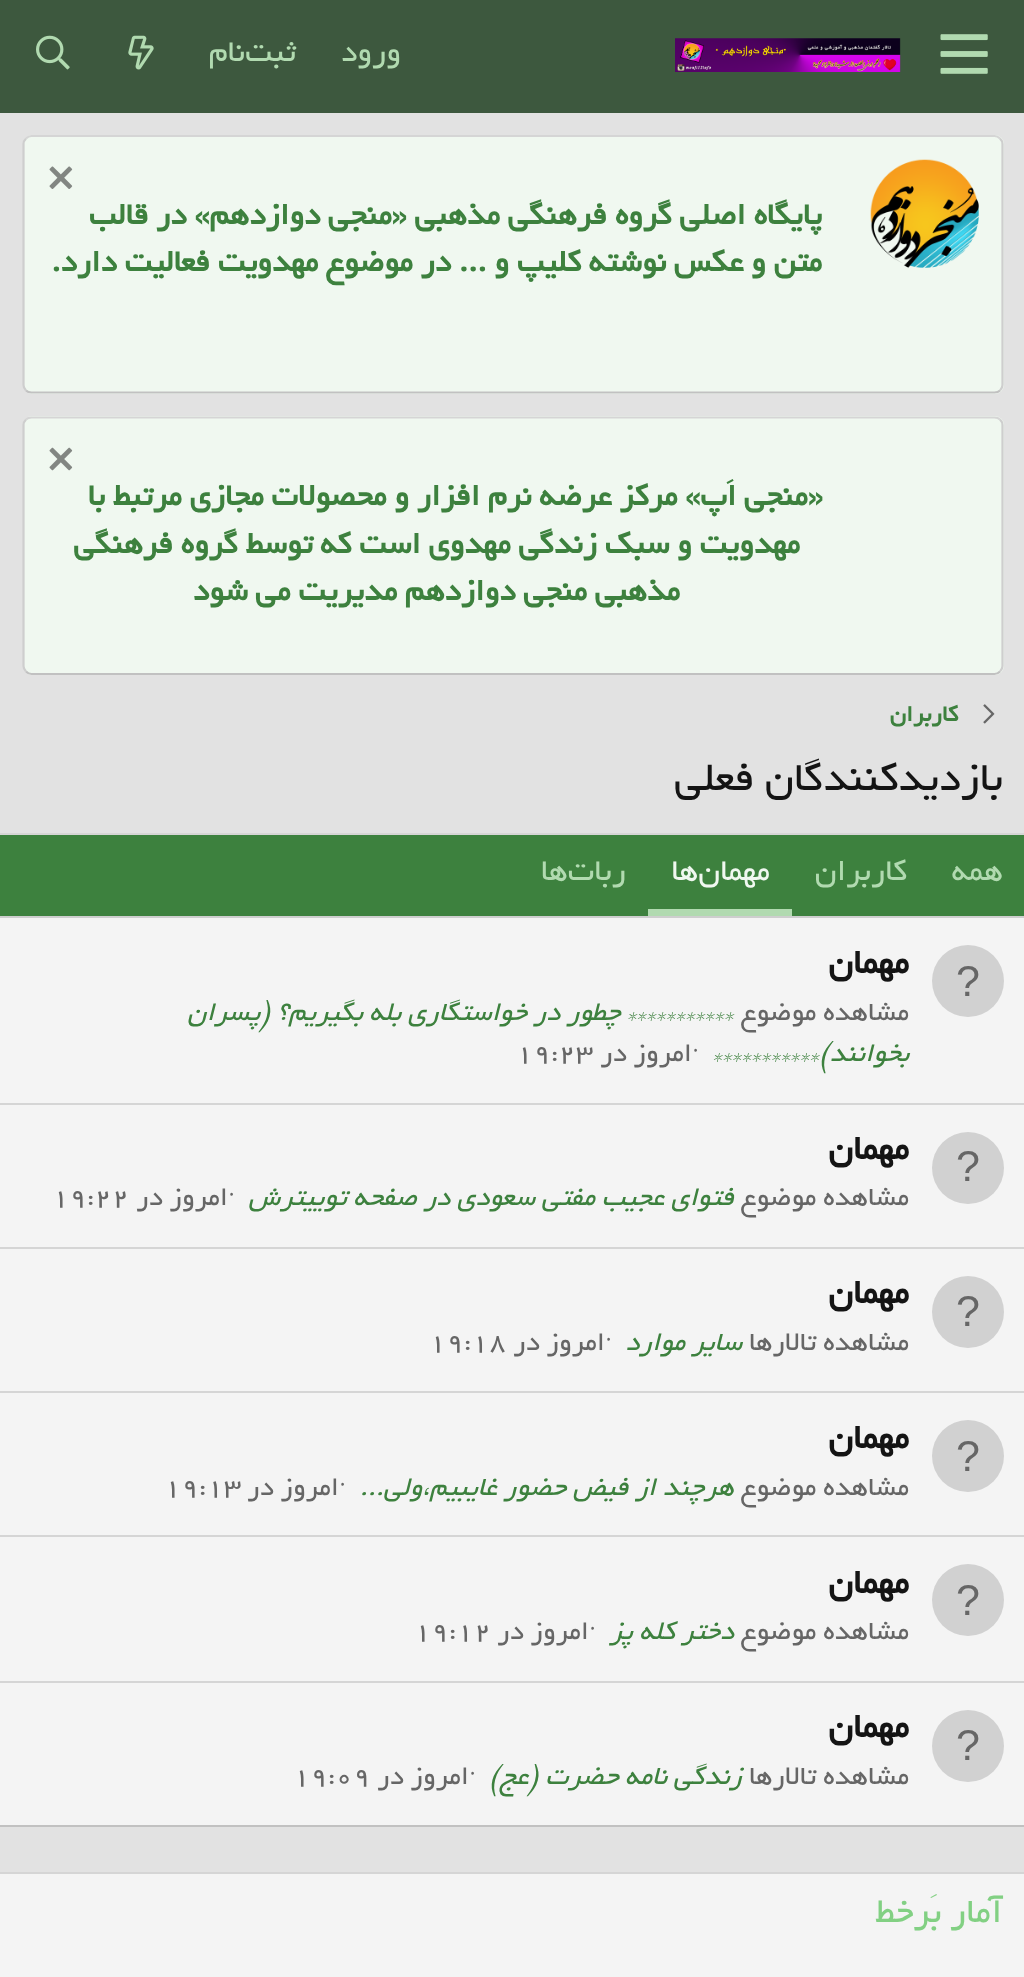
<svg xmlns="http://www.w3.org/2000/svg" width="1024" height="1977">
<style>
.a{font:33.75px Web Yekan;direction:rtl;fill:#b1dab0}
.b{font:bold 33.75px Web Yekan;direction:rtl;fill:#3d813e}
.c{font:bold 25px Web Yekan;direction:rtl;fill:#3d813e}
.d{font:45px Web Yekan;direction:rtl;fill:#141414}
.e{font:33.75px Web Yekan;direction:rtl;fill:#f0f8f0}
.f{font:43px Liberation Sans;fill:#666}
.g{font:bold 38px Web Yekan;direction:rtl;fill:#141414}
.h{font:29.25px Web Yekan;direction:rtl;fill:#666}
.i{font:italic 29.25px Web Yekan;direction:rtl;fill:#3d813e}
.j{font:29.25px Web Yekan;fill:#666}
.k{font:38px Web Yekan;direction:rtl;fill:#82d083}
</style>
<rect width="100%" height="100%" fill="#e2e2e2"/>
<path fill="#3d583e" d="M0 0h1024v113H0z"/>
<image href="1.png" x="940" y="34" width="48" height="40"/>
<image href="2.png" x="675" y="38" width="226" height="34"/>
<image href="3.png" x="128" y="35" width="26" height="35"/>
<image href="4.png" x="36" y="35" width="34" height="35"/>
<rect fill="#f0f8f0" x="23" y="135" width="981" height="259" rx="9"/>
<path fill="none" stroke="#d5d5d5" stroke-width="2.2" d="M26 138.5c1.5-1.5 3.5-2.5 5.5-2.5h963c2 0 4 1 5.5 2.5"/>
<path fill="none" stroke="#cecece" stroke-width="2.2" d="M1000 138.5c1.5 1.5 2.5 3.5 2.5 5.5v241c0 2-1 4-2.5 5.5"/>
<path fill="none" stroke="#c1c1c1" stroke-width="2.2" d="M1000 390.5c-1.5 1.5-3.5 2-5.5 2h-963c-2 0-4-.5-5.5-2"/>
<path fill="none" stroke="#cecece" stroke-width="2.2" d="M26 390.5c-1.5-1.5-2.5-3.5-2.5-5.5v-241c0-2 1-4 2.5-5.5"/>
<image href="5.png" x="870" y="159" width="109" height="109"/>
<image href="6.png" x="49" y="166" width="24" height="23"/>
<rect fill="#f0f8f0" x="23" y="416" width="981" height="259" rx="9"/>
<path fill="none" stroke="#d5d5d5" stroke-width="2.2" d="M26 419.5c1.5-1.5 3.5-2 5.5-2h963c2 0 4 .5 5.5 2"/>
<path fill="none" stroke="#cecece" stroke-width="2.2" d="M1000 419.5c1.5 1.5 2.5 3.5 2.5 5.5v241c0 2-1 4-2.5 5.5"/>
<path fill="none" stroke="#c1c1c1" stroke-width="2.2" d="M1000 671.5c-1.5 1.5-3.5 2.5-5.5 2.5h-963c-2 0-4-1-5.5-2.5"/>
<path fill="none" stroke="#cecece" stroke-width="2.2" d="M26 671.5c-1.5-1.5-2.5-3.5-2.5-5.5v-241c0-2 1-4 2.5-5.5"/>
<image href="7.png" x="49" y="447" width="24" height="24"/>
<image href="8.png" x="983" y="704" width="12" height="20"/>
<path fill="#f4f4f4" d="M0 918h1024v907H0z"/>
<path fill="#d5d5d5" d="M0 833h1024v2H0z"/>
<path fill="#c1c1c1" d="M0 1825h1024v2H0z"/>
<path fill="#3d813e" d="M0 835h1024v81H0z"/>
<path fill="#cecece" d="M0 916h1024v2H0z"/>
<path fill="#b1dab0" d="M648 909h144v7H648z"/>
<circle fill="#d1d1d1" cx="968" cy="981" r="36"/>
<path fill="#d5d5d5" d="M0 1103h1024v2H0z"/>
<circle fill="#d1d1d1" cx="968" cy="1168" r="36"/>
<path fill="#d5d5d5" d="M0 1247h1024v2H0z"/>
<circle fill="#d1d1d1" cx="968" cy="1312" r="36"/>
<path fill="#d5d5d5" d="M0 1391h1024v2H0z"/>
<circle fill="#d1d1d1" cx="968" cy="1456" r="36"/>
<path fill="#d5d5d5" d="M0 1535h1024v2H0z"/>
<circle fill="#d1d1d1" cx="968" cy="1600" r="36"/>
<path fill="#d5d5d5" d="M0 1681h1024v2H0z"/>
<circle fill="#d1d1d1" cx="968" cy="1746" r="36"/>
<path fill="#f4f4f4" d="M0 1874h1024v103H0z"/>
<path fill="#d5d5d5" d="M0 1872h1024v2H0z"/>
<text class="a" x="401" y="61">ورود</text>
<text class="a" x="296" y="61">ثبت‌نام</text>
<text class="b" x="822" y="224">پایگاه اصلی گروه فرهنگی مذهبی «منجی دوازدهم» در قالب</text>
<text class="b" x="822" y="271">متن و عکس نوشته کلیپ و ... در موضوع مهدویت فعالیت دارد.</text>
<text class="b" x="823" y="505">«منجی اَپ» مرکز عرضه نرم افزار و محصولات مجازی مرتبط با</text>
<text class="b" x="800" y="553">مهدویت و سبک زندگی مهدوی است که توسط گروه فرهنگی</text>
<text class="b" x="680" y="600">مذهبی منجی دوازدهم مدیریت می شود</text>
<text class="c" x="958" y="721">کاربران</text>
<text class="d" x="1003" y="790">بازدیدکنندگان فعلی</text>
<text class="a" x="1003" y="880">همه</text>
<text class="a" x="907" y="880">کاربران</text>
<text class="e" x="770" y="880">مهمان‌ها</text>
<text class="a" x="626" y="880">ربات‌ها</text>
<text class="f" x="956" y="996">?</text>
<text class="g" x="909" y="973">مهمان</text>
<text class="h" x="909" y="1020">مشاهده موضوع</text>
<text class="i" x="734" y="1020">*********** چطور در خواستگاری بله بگیریم؟ (پسران</text>
<text class="i" x="909" y="1061">بخوانند)***********</text>
<text class="j" x="692" y="1061">·</text>
<text class="h" x="692" y="1061">امروز در</text>
<text class="j" x="516" y="1061">19:23</text>
<text class="f" x="956" y="1181">?</text>
<text class="g" x="909" y="1159">مهمان</text>
<text class="h" x="909" y="1205">مشاهده موضوع</text>
<text class="i" x="734" y="1205">فتوای عجیب مفتی سعودی در صفحه توییترش</text>
<text class="j" x="228" y="1205">·</text>
<text class="h" x="228" y="1205">امروز در</text>
<text class="j" x="52" y="1205">19:22</text>
<text class="f" x="956" y="1326">?</text>
<text class="g" x="909" y="1303">مهمان</text>
<text class="h" x="909" y="1350">مشاهده تالارها</text>
<text class="i" x="742" y="1350">سایر موارد</text>
<text class="j" x="605" y="1350">·</text>
<text class="h" x="605" y="1350">امروز در</text>
<text class="j" x="429" y="1350">19:18</text>
<text class="f" x="956" y="1471">?</text>
<text class="g" x="909" y="1448">مهمان</text>
<text class="h" x="909" y="1495">مشاهده موضوع</text>
<text class="i" x="734" y="1495">هرچند از فیض حضور غایبیم،ولی...</text>
<text class="j" x="339" y="1495">·</text>
<text class="h" x="339" y="1495">امروز در</text>
<text class="j" x="164" y="1495">19:13</text>
<text class="f" x="956" y="1615">?</text>
<text class="g" x="909" y="1593">مهمان</text>
<text class="h" x="909" y="1639">مشاهده موضوع</text>
<text class="i" x="734" y="1639">دختر کله پز</text>
<text class="j" x="589" y="1639">·</text>
<text class="h" x="589" y="1639">امروز در</text>
<text class="j" x="414" y="1639">19:12</text>
<text class="f" x="956" y="1760">?</text>
<text class="g" x="909" y="1737">مهمان</text>
<text class="h" x="909" y="1784">مشاهده تالارها</text>
<text class="i" x="742" y="1784">زندگی نامه حضرت (عج)</text>
<text class="j" x="469" y="1784">·</text>
<text class="h" x="469" y="1784">امروز در</text>
<text class="j" x="293" y="1784">19:09</text>
<text class="k" x="1003" y="1922">آمار بَرخط</text>
</svg>
